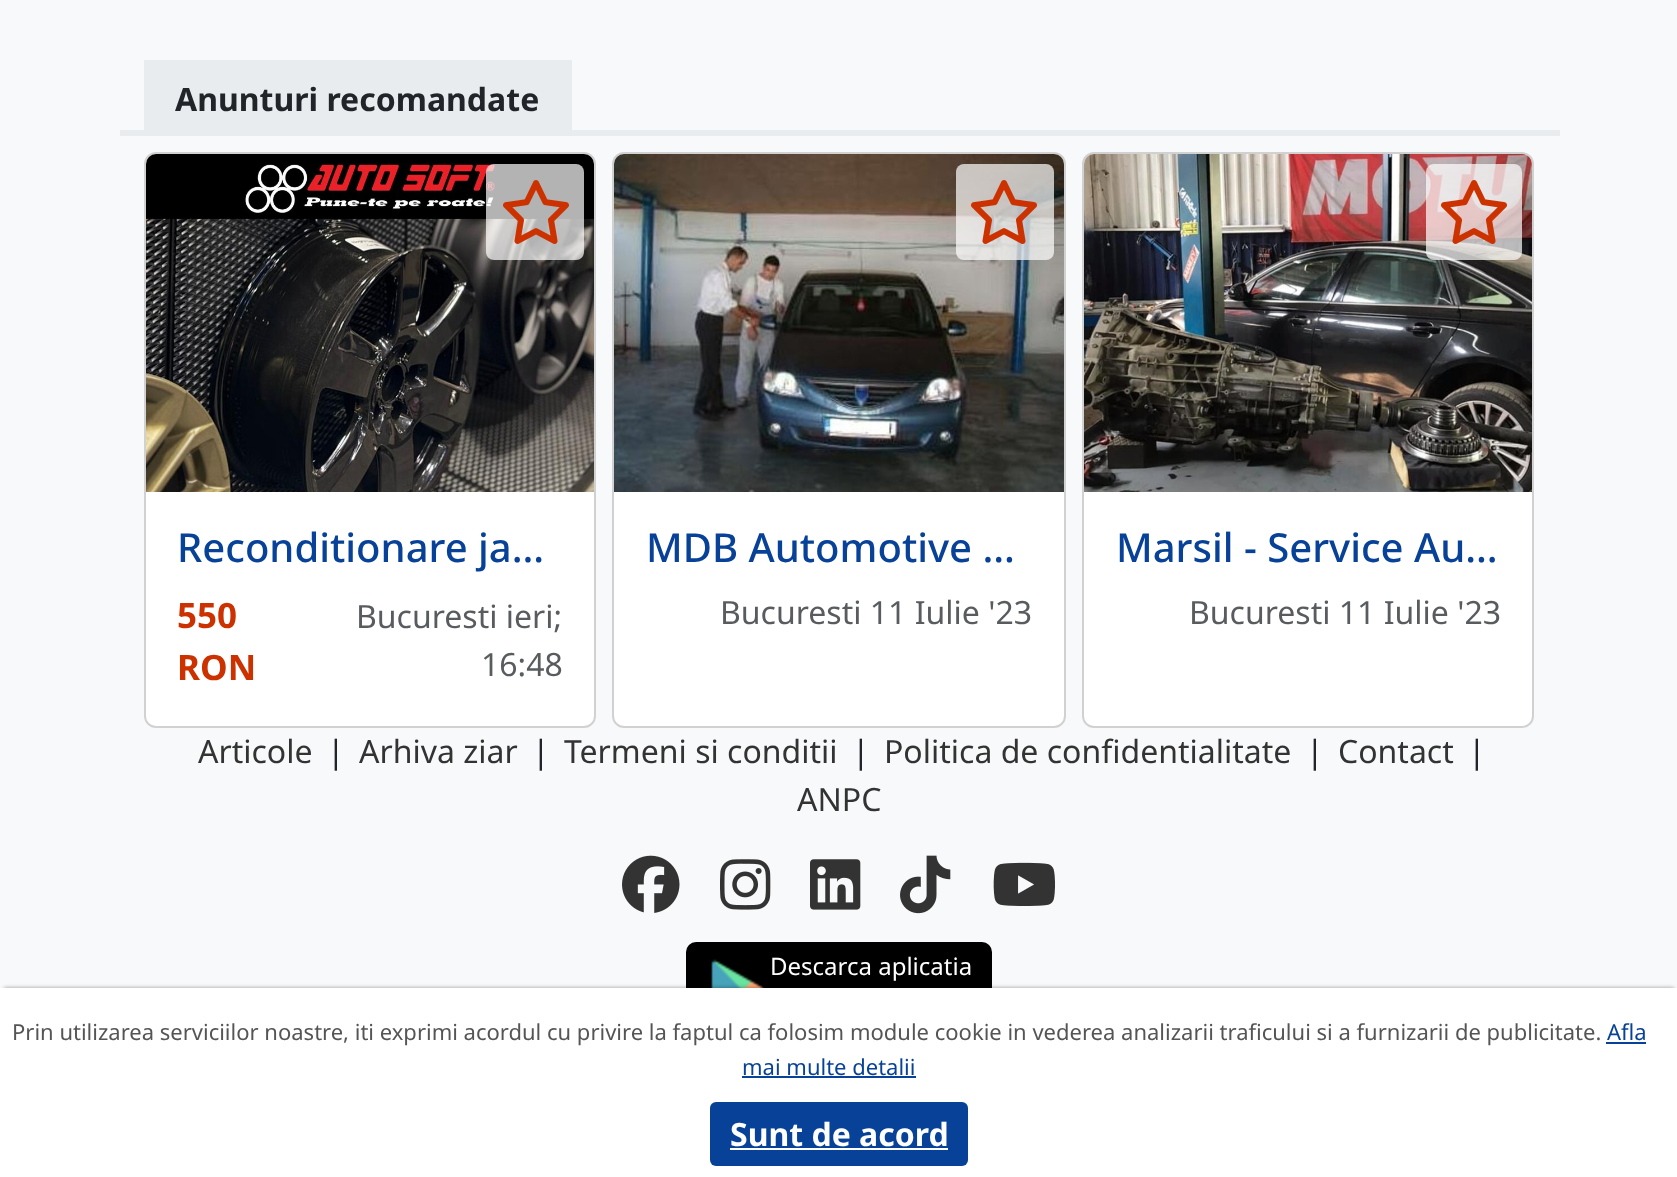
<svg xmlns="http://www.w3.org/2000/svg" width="1677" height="1177">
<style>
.a{font:bold 32px Noto Sans;fill:#212529}
.b{font:500 40px Noto Sans;fill:#084298}
.c{font:bold 35px Noto Sans;fill:#cc3100}
.d{font:32px Noto Sans;fill:#595c5f}
.e{font:32px Noto Sans;fill:#333}
.f{font:32px Noto Sans;fill:#212529}
.g{font:24px Noto Sans;fill:#fff}
.h{font:22px Noto Sans;fill:#555}
.i{font:22px Noto Sans;fill:#084298}
.j{font:bold 32px Noto Sans;fill:#fff}
</style>
<rect width="100%" height="100%" fill="#f8f9fa"/>
<path fill="#e9ecef" d="M120 130h1440v6H120z"/>
<path fill="#e9ecef" d="M144 60h428v70H144z"/>
<rect fill="#fff" x="144" y="152" width="452" height="576" rx="12"/>
<rect fill="none" stroke="#0000002e" stroke-width="2" x="145" y="153" width="450" height="574" rx="11"/>
<image href="1.png" x="146" y="154" width="448" height="338"/>
<rect fill="#ffffffb3" x="486" y="164" width="98" height="96" rx="8"/>
<image href="2.png" x="503" y="180" width="66" height="64"/>
<rect fill="#fff" x="612" y="152" width="454" height="576" rx="12"/>
<rect fill="none" stroke="#0000002e" stroke-width="2" x="613" y="153" width="452" height="574" rx="11"/>
<image href="3.png" x="614" y="154" width="450" height="338"/>
<rect fill="#ffffffb3" x="956" y="164" width="98" height="96" rx="8"/>
<image href="4.png" x="971" y="180" width="66" height="64"/>
<rect fill="#fff" x="1082" y="152" width="452" height="576" rx="12"/>
<rect fill="none" stroke="#0000002e" stroke-width="2" x="1083" y="153" width="450" height="574" rx="11"/>
<image href="5.png" x="1084" y="154" width="448" height="338"/>
<rect fill="#ffffffb3" x="1426" y="164" width="96" height="96" rx="8"/>
<image href="6.png" x="1441" y="180" width="66" height="64"/>
<image href="7.png" x="622" y="855" width="58" height="58"/>
<image href="8.png" x="720" y="859" width="51" height="51"/>
<image href="9.png" x="810" y="859" width="51" height="51"/>
<image href="10.png" x="900" y="855" width="51" height="59"/>
<image href="11.png" x="993" y="862" width="62" height="44"/>
<rect fill="#000" x="686" y="942" width="306" height="92" rx="10"/>
<image href="12.png" x="711" y="959" width="54" height="29"/>
<path fill="#00000066" filter="blur(2px)" d="M4 988h1670v182H4z"/>
<path fill="#fff" d="M0 988h1677v189H0z"/>
<path fill="#084298" d="M1606 1042h40v2H1606z"/>
<path fill="#084298" d="M742 1076h174v2H742z"/>
<rect fill="#084298" x="710" y="1102" width="258" height="64" rx="6"/>
<path fill="#fff" d="M730 1148h218v2H730z"/>
<text class="a" x="175" y="111">Anunturi recomandate</text>
<text class="b" x="177" y="562">Reconditionare ja…</text>
<text class="c" x="177" y="628">550</text>
<text class="c" x="177" y="680">RON</text>
<text class="d" x="356" y="628">Bucuresti ieri;</text>
<text class="d" x="481" y="676">16:48</text>
<text class="b" x="646" y="562">MDB Automotive …</text>
<text class="d" x="720" y="624">Bucuresti 11 Iulie '23</text>
<text class="b" x="1116" y="562">Marsil - Service Au…</text>
<text class="d" x="1189" y="624">Bucuresti 11 Iulie '23</text>
<text class="e" x="198" y="763">Articole</text>
<text class="f" x="327" y="763">|</text>
<text class="e" x="359" y="763">Arhiva ziar</text>
<text class="f" x="532" y="763">|</text>
<text class="e" x="564" y="763">Termeni si conditii</text>
<text class="f" x="852" y="763">|</text>
<text class="e" x="884" y="763">Politica de confidentialitate</text>
<text class="f" x="1306" y="763">|</text>
<text class="e" x="1338" y="763">Contact</text>
<text class="f" x="1468" y="763">|</text>
<text class="e" x="797" y="811">ANPC</text>
<text class="g" x="770" y="975">Descarca aplicatia</text>
<text class="h" x="12" y="1040">Prin utilizarea serviciilor noastre, iti exprimi acordul cu privire la faptul ca folosim module cookie in vederea analizarii traficului si a furnizarii de publicitate.</text>
<text class="i" x="1607" y="1040">Afla</text>
<text class="i" x="742" y="1075">mai multe detalii</text>
<text class="j" x="730" y="1146">Sunt de acord</text>
</svg>
